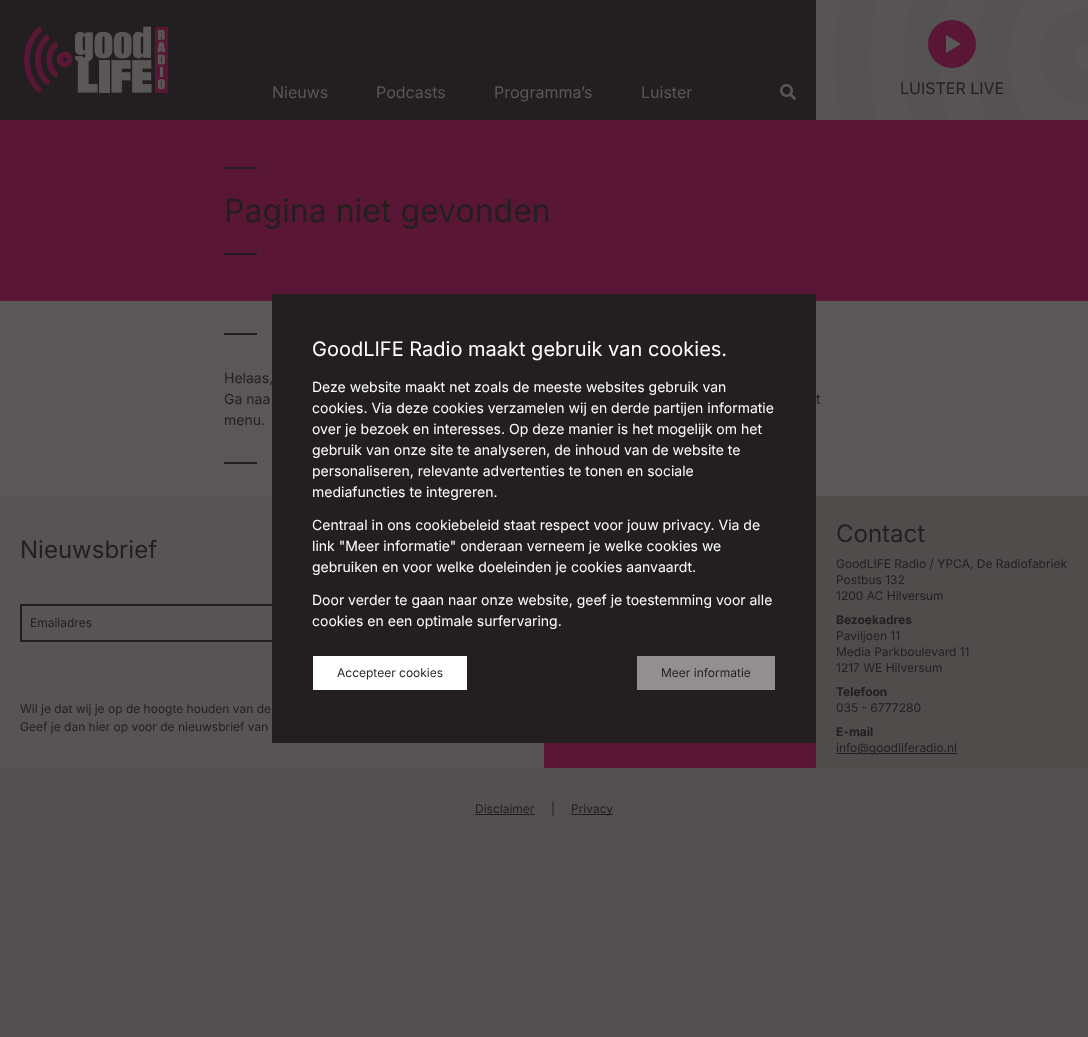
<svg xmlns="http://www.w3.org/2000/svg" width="1088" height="1037">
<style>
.a{font:16px Inter;fill:#5a5758}
.b{font:16px Inter;fill:#231f20}
.c{font:32px Inter;fill:#231f20}
.d{font:14px Inter;fill:#231f20}
.e{font:20px Inter;fill:#fff}
.f{font:14px Inter;fill:#fff}
.g{font:12px Inter;fill:#231f20}
.h{font:24px Inter;fill:#231f20}
.i{font:bold 12px Inter;fill:#231f20}
</style>
<rect width="100%" height="100%" fill="#535051"/>
<path fill="#231f20" d="M0 0h816v120H0z"/>
<image href="1.png" x="24" y="26" width="144" height="67"/>
<image href="2.png" x="780" y="84" width="16" height="16"/>
<path fill="#575455" d="M816 0h272v120H816z"/>
<image href="3.png" x="835" y="0" width="253" height="120"/>
<circle fill="#5a1735" cx="952" cy="44" r="24"/>
<path fill="#5a5758" d="M961 44l-15 9v-18z"/>
<path fill="#5a1735" d="M0 120h1088v181H0z"/>
<path fill="#231f20" d="M224 167h33v2H224z"/>
<path fill="#231f20" d="M224 253h33v2H224z"/>
<path fill="#5a5758" d="M0 301h1088v195H0z"/>
<path fill="#231f20" d="M224 333h33v2H224z"/>
<path fill="#231f20" d="M224 462h33v2H224z"/>
<path fill="#575455" d="M0 496h544v272H0z"/>
<path fill="none" stroke="#231f20" stroke-width="2" d="M21 605h334v36H21z"/>
<path fill="#231f20" d="M272 294h544v449H272z"/>
<path fill="#fff" d="M313 656h154v34H313z"/>
<path fill="#918f90" d="M637 656h138v34H637z"/>
<path fill="#4f4c4c" d="M816 496h272v272H816z"/>
<path fill="#231f20" d="M836 753h121v1H836z"/>
<path fill="#5a1735" d="M544 743h272v25H544z"/>
<path fill="#231f20" d="M475 814h60v1H475z"/>
<path fill="#231f20" d="M571 814h42v1H571z"/>
<text class="a" x="272" y="98">Nieuws</text>
<text class="a" x="376" y="98">Podcasts</text>
<text class="a" x="494" y="98">Programma’s</text>
<text class="a" x="641" y="98">Luister</text>
<text class="b" x="900" y="94">LUISTER LIVE</text>
<text class="c" x="224" y="222">Pagina niet gevonden</text>
<text class="d" x="224" y="383">Helaas,</text>
<text class="d" x="224" y="404">Ga naa</text>
<text class="d" x="816" y="404">t</text>
<text class="d" x="224" y="425">menu.</text>
<text class="e" x="312" y="356">GoodLIFE Radio maakt gebruik van cookies.</text>
<text class="f" x="312" y="392">Deze website maakt net zoals de meeste websites gebruik van</text>
<text class="f" x="312" y="413">cookies. Via deze cookies verzamelen wij en derde partijen informatie</text>
<text class="f" x="312" y="434">over je bezoek en interesses. Op deze manier is het mogelijk om het</text>
<text class="f" x="312" y="455">gebruik van onze site te analyseren, de inhoud van de website te</text>
<text class="f" x="312" y="476">personaliseren, relevante advertenties te tonen en sociale</text>
<text class="f" x="312" y="497">mediafuncties te integreren.</text>
<text class="f" x="312" y="530">Centraal in ons cookiebeleid staat respect voor jouw privacy. Via de</text>
<text class="f" x="312" y="551">link "Meer informatie" onderaan verneem je welke cookies we</text>
<text class="f" x="312" y="572">gebruiken en voor welke doeleinden je cookies aanvaardt.</text>
<text class="f" x="312" y="605">Door verder te gaan naar onze website, geef je toestemming voor alle</text>
<text class="f" x="312" y="626">cookies en een optimale surfervaring.</text>
<text class="g" x="337" y="677">Accepteer cookies</text>
<text class="g" x="661" y="677">Meer informatie</text>
<text class="h" x="20" y="558">Nieuwsbrief</text>
<text class="g" x="30" y="627">Emailadres</text>
<text class="g" x="20" y="713">Wil je dat wij je op de hoogte houden van de</text>
<text class="g" x="20" y="731">Geef je dan hier op voor de nieuwsbrief van</text>
<text class="h" x="836" y="542">Contact</text>
<text class="g" x="836" y="568">GoodLIFE Radio / YPCA, De Radiofabriek</text>
<text class="g" x="836" y="584">Postbus 132</text>
<text class="g" x="836" y="600">1200 AC Hilversum</text>
<text class="i" x="836" y="624">Bezoekadres</text>
<text class="g" x="836" y="640">Paviljoen 11</text>
<text class="g" x="836" y="656">Media Parkboulevard 11</text>
<text class="g" x="836" y="672">1217 WE Hilversum</text>
<text class="i" x="836" y="696">Telefoon</text>
<text class="g" x="836" y="712">035 - 6777280</text>
<text class="i" x="836" y="736">E-mail</text>
<text class="g" x="836" y="752">info@goodliferadio.nl</text>
<text class="g" x="475" y="813">Disclaimer</text>
<text class="g" x="551" y="813">|</text>
<text class="g" x="571" y="813">Privacy</text>
</svg>
